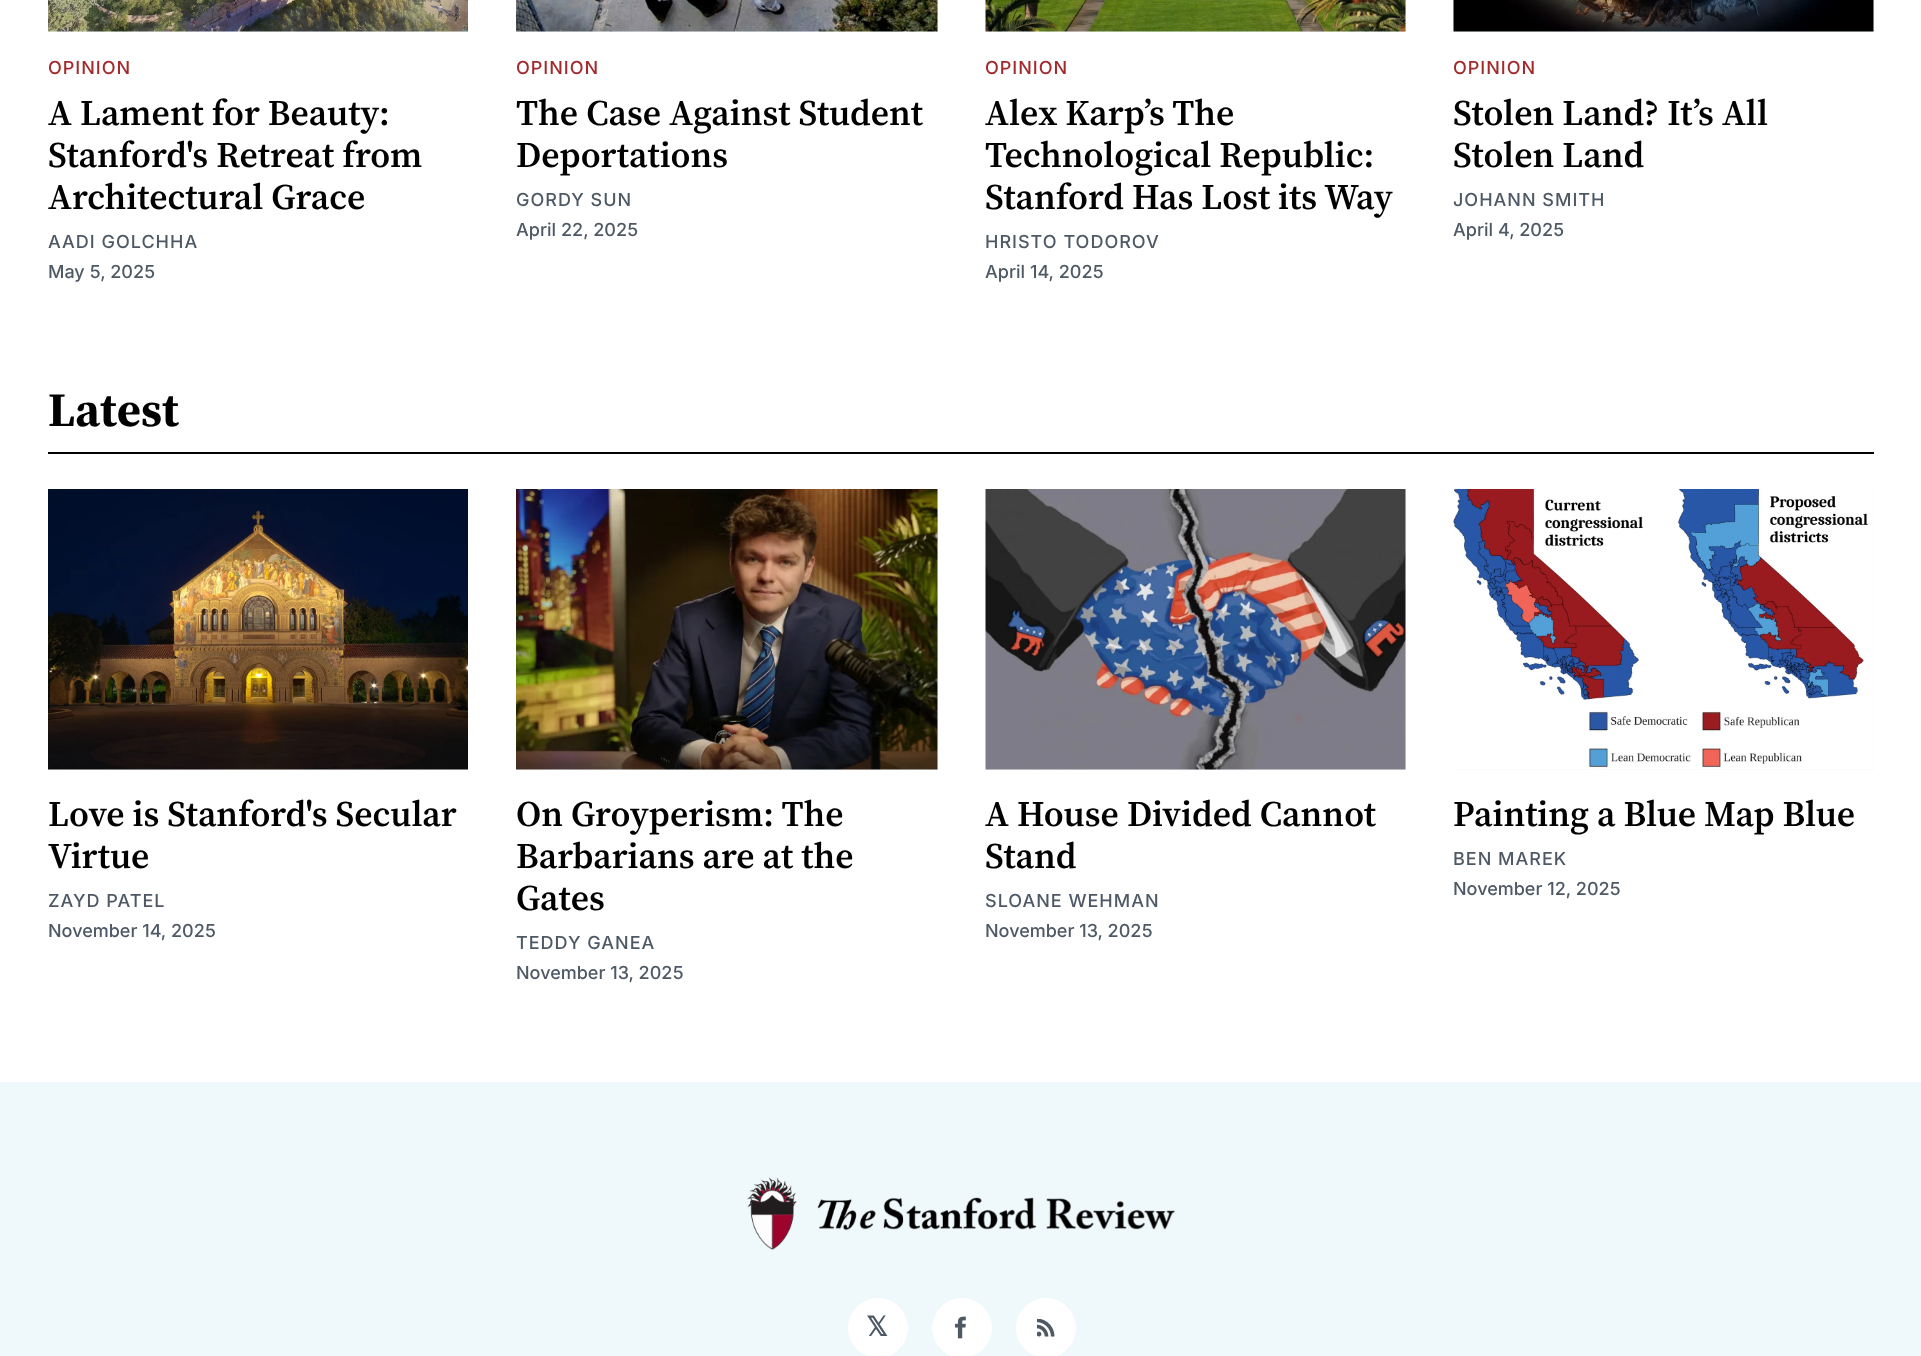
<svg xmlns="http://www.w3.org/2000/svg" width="1921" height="1356">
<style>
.a{font:500 18px Inter;letter-spacing:1px;fill:#a22a2c}
.b{font:600 36px 'Source Serif 4';fill:#000}
.c{font:500 18px Inter;letter-spacing:1px;fill:#4e5965}
.d{font:500 18px Inter;fill:#4e5965}
.e{font:bold 48px 'Source Serif 4';fill:#000}
.f{font:bold 27px DejaVu Sans;fill:#4e5965}
</style>
<rect width="100%" height="100%" fill="#fff"/>
<path fill="#eff8fa" d="M48 31h420v1H48z"/>
<image href="1.png" x="48" y="0" width="420" height="32"/>
<path fill="#eff8fa" d="M516 0h422v32H516z"/>
<image href="2.png" x="516" y="0" width="422" height="32"/>
<path fill="#eff8fa" d="M986 0h420v32H986z"/>
<image href="3.png" x="985" y="0" width="421" height="32"/>
<path fill="#eff8fa" d="M1454 0h420v32H1454z"/>
<image href="4.png" x="1453" y="0" width="421" height="32"/>
<path fill="#000" d="M48 452h1826v2H48z"/>
<path fill="#eff8fa" d="M48 769h420v1H48z"/>
<image href="5.png" x="48" y="489" width="420" height="281"/>
<path fill="#eff8fa" d="M516 489h422v281H516z"/>
<image href="6.png" x="516" y="489" width="422" height="281"/>
<path fill="#eff8fa" d="M986 489h420v281H986z"/>
<image href="7.png" x="985" y="489" width="421" height="281"/>
<path fill="#eff8fa" d="M1454 489h420v281H1454z"/>
<image href="8.png" x="1453" y="489" width="421" height="281"/>
<path fill="#eff8fa" d="M0 1082h1921v274H0z"/>
<image href="9.png" x="747" y="1177" width="428" height="73"/>
<circle fill="#fff" cx="878" cy="1328" r="30"/>
<circle fill="#fff" cx="962" cy="1328" r="30"/>
<image href="10.png" x="955" y="1316" width="11" height="23"/>
<circle fill="#fff" cx="1046" cy="1328" r="30"/>
<image href="11.png" x="1037" y="1319" width="18" height="18"/>
<text class="a" x="48" y="74">OPINION</text>
<text class="b" x="48" y="125">A Lament for Beauty:</text>
<text class="b" x="48" y="167">Stanford's Retreat from</text>
<text class="b" x="48" y="209">Architectural Grace</text>
<text class="c" x="48" y="248">AADI GOLCHHA</text>
<text class="d" x="48" y="278">May 5, 2025</text>
<text class="a" x="516" y="74">OPINION</text>
<text class="b" x="516" y="125">The Case Against Student</text>
<text class="b" x="516" y="167">Deportations</text>
<text class="c" x="516" y="206">GORDY SUN</text>
<text class="d" x="516" y="236">April 22, 2025</text>
<text class="a" x="985" y="74">OPINION</text>
<text class="b" x="985" y="125">Alex Karp’s The</text>
<text class="b" x="985" y="167">Technological Republic:</text>
<text class="b" x="985" y="209">Stanford Has Lost its Way</text>
<text class="c" x="985" y="248">HRISTO TODOROV</text>
<text class="d" x="985" y="278">April 14, 2025</text>
<text class="a" x="1453" y="74">OPINION</text>
<text class="b" x="1453" y="125">Stolen Land? It’s All</text>
<text class="b" x="1453" y="167">Stolen Land</text>
<text class="c" x="1453" y="206">JOHANN SMITH</text>
<text class="d" x="1453" y="236">April 4, 2025</text>
<text class="e" x="48" y="426">Latest</text>
<text class="b" x="48" y="826">Love is Stanford's Secular</text>
<text class="b" x="48" y="868">Virtue</text>
<text class="c" x="48" y="907">ZAYD PATEL</text>
<text class="d" x="48" y="937">November 14, 2025</text>
<text class="b" x="516" y="826">On Groyperism: The</text>
<text class="b" x="516" y="868">Barbarians are at the</text>
<text class="b" x="516" y="910">Gates</text>
<text class="c" x="516" y="949">TEDDY GANEA</text>
<text class="d" x="516" y="979">November 13, 2025</text>
<text class="b" x="985" y="826">A House Divided Cannot</text>
<text class="b" x="985" y="868">Stand</text>
<text class="c" x="985" y="907">SLOANE WEHMAN</text>
<text class="d" x="985" y="937">November 13, 2025</text>
<text class="b" x="1453" y="826">Painting a Blue Map Blue</text>
<text class="c" x="1453" y="865">BEN MAREK</text>
<text class="d" x="1453" y="895">November 12, 2025</text>
<text class="f" x="866" y="1336">𝕏</text>
</svg>
